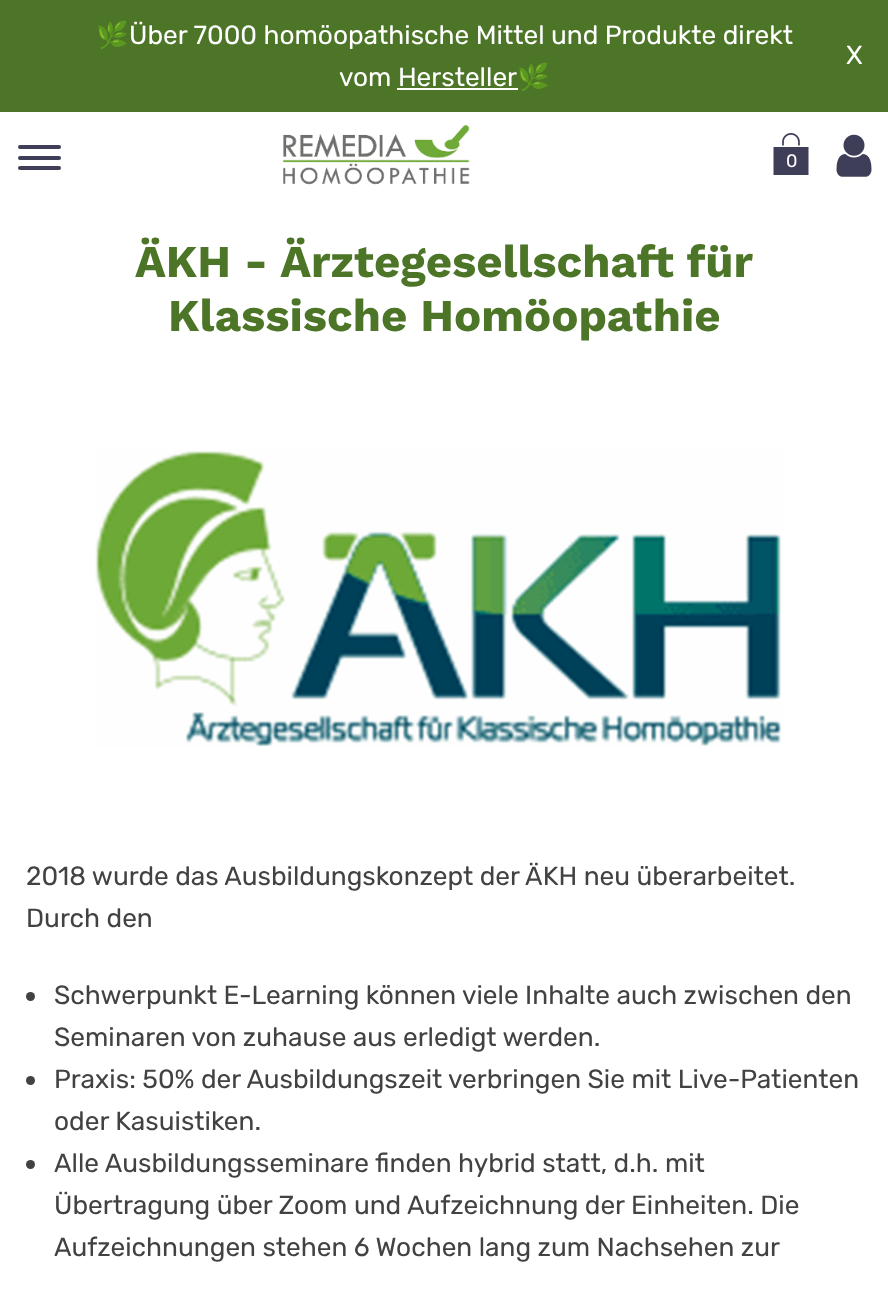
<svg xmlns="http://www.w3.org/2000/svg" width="888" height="1293">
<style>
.a{font:26.25px Noto Color Emoji;fill:#fff}
.b{font:26.25px Rubik;fill:#fff}
.c{font:18px Rubik;fill:#fff}
.d{font:bold 45.5px Work Sans;fill:#4c7527}
.e{font:26.25px Rubik;fill:#424242}
</style>
<rect width="100%" height="100%" fill="#fff"/>
<path fill="#4c7527" d="M0 0h888v112H0z"/>
<path fill="#fff" d="M397 88h121v2H397z"/>
<rect fill="#3e3e58" x="18" y="166" width="43" height="4" rx="2"/>
<rect fill="#3e3e58" x="18" y="145" width="43" height="4" rx="2"/>
<rect fill="#3e3e58" x="18" y="156" width="43" height="4" rx="2"/>
<image href="1.png" x="283" y="124" width="187" height="61"/>
<image href="2.png" x="773" y="133" width="36" height="42"/>
<image href="3.png" x="836" y="134" width="36" height="43"/>
<image href="4.png" x="95" y="450" width="687" height="297"/>
<circle fill="#424242" cx="30.5" cy="996.5" r="4.5"/>
<circle fill="#424242" cx="30.5" cy="1080.5" r="4.5"/>
<circle fill="#424242" cx="30.5" cy="1164.5" r="4.5"/>
<text class="a" x="96" y="44">🌿</text>
<text class="b" x="129" y="44">Über 7000 homöopathische Mittel und Produkte direkt</text>
<text class="b" x="339" y="86">vom Hersteller</text>
<text class="a" x="517" y="86">🌿</text>
<text class="b" x="846" y="64">X</text>
<text class="c" x="786" y="167">0</text>
<text class="d" x="135" y="277">ÄKH - Ärztegesellschaft für</text>
<text class="d" x="168" y="331">Klassische Homöopathie</text>
<text class="e" x="26" y="885">2018 wurde das Ausbildungskonzept der ÄKH neu überarbeitet.</text>
<text class="e" x="26" y="927">Durch den</text>
<text class="e" x="54" y="1004">Schwerpunkt E-Learning können viele Inhalte auch zwischen den</text>
<text class="e" x="54" y="1046">Seminaren von zuhause aus erledigt werden.</text>
<text class="e" x="54" y="1088">Praxis: 50% der Ausbildungszeit verbringen Sie mit Live-Patienten</text>
<text class="e" x="54" y="1130">oder Kasuistiken.</text>
<text class="e" x="54" y="1172">Alle Ausbildungsseminare finden hybrid statt, d.h. mit</text>
<text class="e" x="54" y="1214">Übertragung über Zoom und Aufzeichnung der Einheiten. Die</text>
<text class="e" x="54" y="1256">Aufzeichnungen stehen 6 Wochen lang zum Nachsehen zur</text>
</svg>
